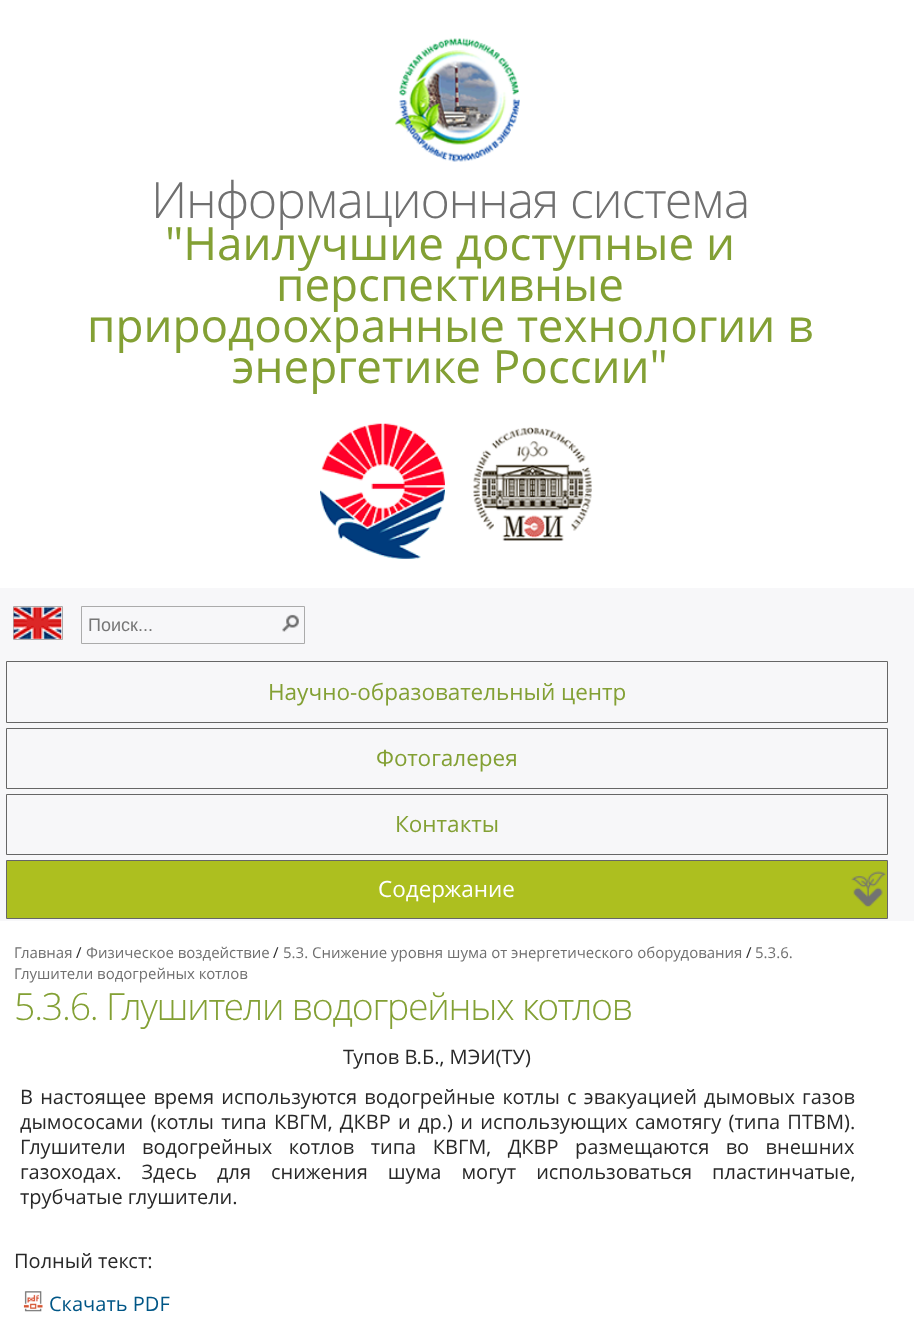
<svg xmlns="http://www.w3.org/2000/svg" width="914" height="1327">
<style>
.a{font:300 50.25px Open Sans;letter-spacing:-1.25px;fill:#707070}
.b{font:45.75px Open Sans;fill:#83a034}
.c{font:18px Liberation Sans;fill:#777}
.d{font:22.5px Open Sans;fill:#83a034}
.e{font:22.5px Open Sans;fill:#fff}
.f{font:15px Open Sans;fill:#707070}
.g{font:15px Open Sans;fill:#282828}
.h{font:300 37.5px Open Sans;letter-spacing:-1.25px;fill:#83a034}
.i{font:20px Open Sans;fill:#282828}
.j{font:20px Open Sans;fill:#005686}
</style>
<rect width="100%" height="100%" fill="#fff"/>
<image href="1.png" x="395" y="38" width="125" height="124"/>
<image href="2.png" x="320" y="423" width="125" height="136"/>
<image href="3.png" x="473" y="427" width="119" height="114"/>
<path fill="#f7f7f9" d="M0 588h914v333H0z"/>
<path fill="none" stroke="#ababab" d="M13.5 606.5h49v33H13.5z"/>
<image href="4.png" x="13" y="607" width="49" height="32"/>
<path fill="none" stroke="#ababab" d="M81.5 606.5h223v37H81.5z"/>
<image href="5.png" x="282" y="614" width="17" height="18"/>
<path fill="none" stroke="#666" d="M6.5 661.5h881v61H6.5z"/>
<path fill="none" stroke="#666" d="M6.5 728.5h881v60H6.5z"/>
<path fill="none" stroke="#666" d="M6.5 794.5h881v60H6.5z"/>
<path fill="#adbf1f" d="M7 861h880v57H7z"/>
<image href="6.png" x="851" y="871" width="35" height="36"/>
<path fill="none" stroke="#666" d="M6.5 860.5h881v58H6.5z"/>
<image href="7.png" x="23" y="1291" width="20" height="21"/>
<text class="a" x="151" y="218">Информационная система</text>
<text class="b" x="165" y="260">"Наилучшие доступные и</text>
<text class="b" x="276" y="301">перспективные</text>
<text class="b" x="87" y="342">природоохранные технологии в</text>
<text class="b" x="232" y="383">энергетике России"</text>
<text class="c" x="88" y="631">Поиск...</text>
<text class="d" x="268" y="700">Научно-образовательный центр</text>
<text class="d" x="376" y="766">Фотогалерея</text>
<text class="d" x="395" y="832">Контакты</text>
<text class="e" x="378" y="897">Содержание</text>
<text class="f" x="14" y="958">Главная</text>
<text class="g" x="76" y="958">/</text>
<text class="f" x="86" y="958">Физическое воздействие</text>
<text class="g" x="273" y="958">/</text>
<text class="f" x="283" y="958">5.3. Снижение уровня шума от энергетического оборудования</text>
<text class="g" x="746" y="958">/</text>
<text class="f" x="755" y="958">5.3.6.</text>
<text class="f" x="14" y="979">Глушители водогрейных котлов</text>
<text class="h" x="14" y="1020">5.3.6. Глушители водогрейных котлов</text>
<text class="i" x="343" y="1064">Тупов В.Б., МЭИ(ТУ)</text>
<text class="i" x="20" y="1104" word-spacing="2">В настоящее время используются водогрейные котлы с эвакуацией дымовых газов</text>
<text class="i" x="20" y="1129" word-spacing="2.1">дымососами (котлы типа КВГМ, ДКВР и др.) и использующих самотягу (типа ПТВМ).</text>
<text class="i" x="20" y="1154" word-spacing="11.25">Глушители водогрейных котлов типа КВГМ, ДКВР размещаются во внешних</text>
<text class="i" x="20" y="1179" word-spacing="14.75">газоходах. Здесь для снижения шума могут использоваться пластинчатые,</text>
<text class="i" x="20" y="1204">трубчатые глушители.</text>
<text class="i" x="14" y="1268">Полный текст:</text>
<text class="j" x="49" y="1311">Скачать PDF</text>
</svg>
